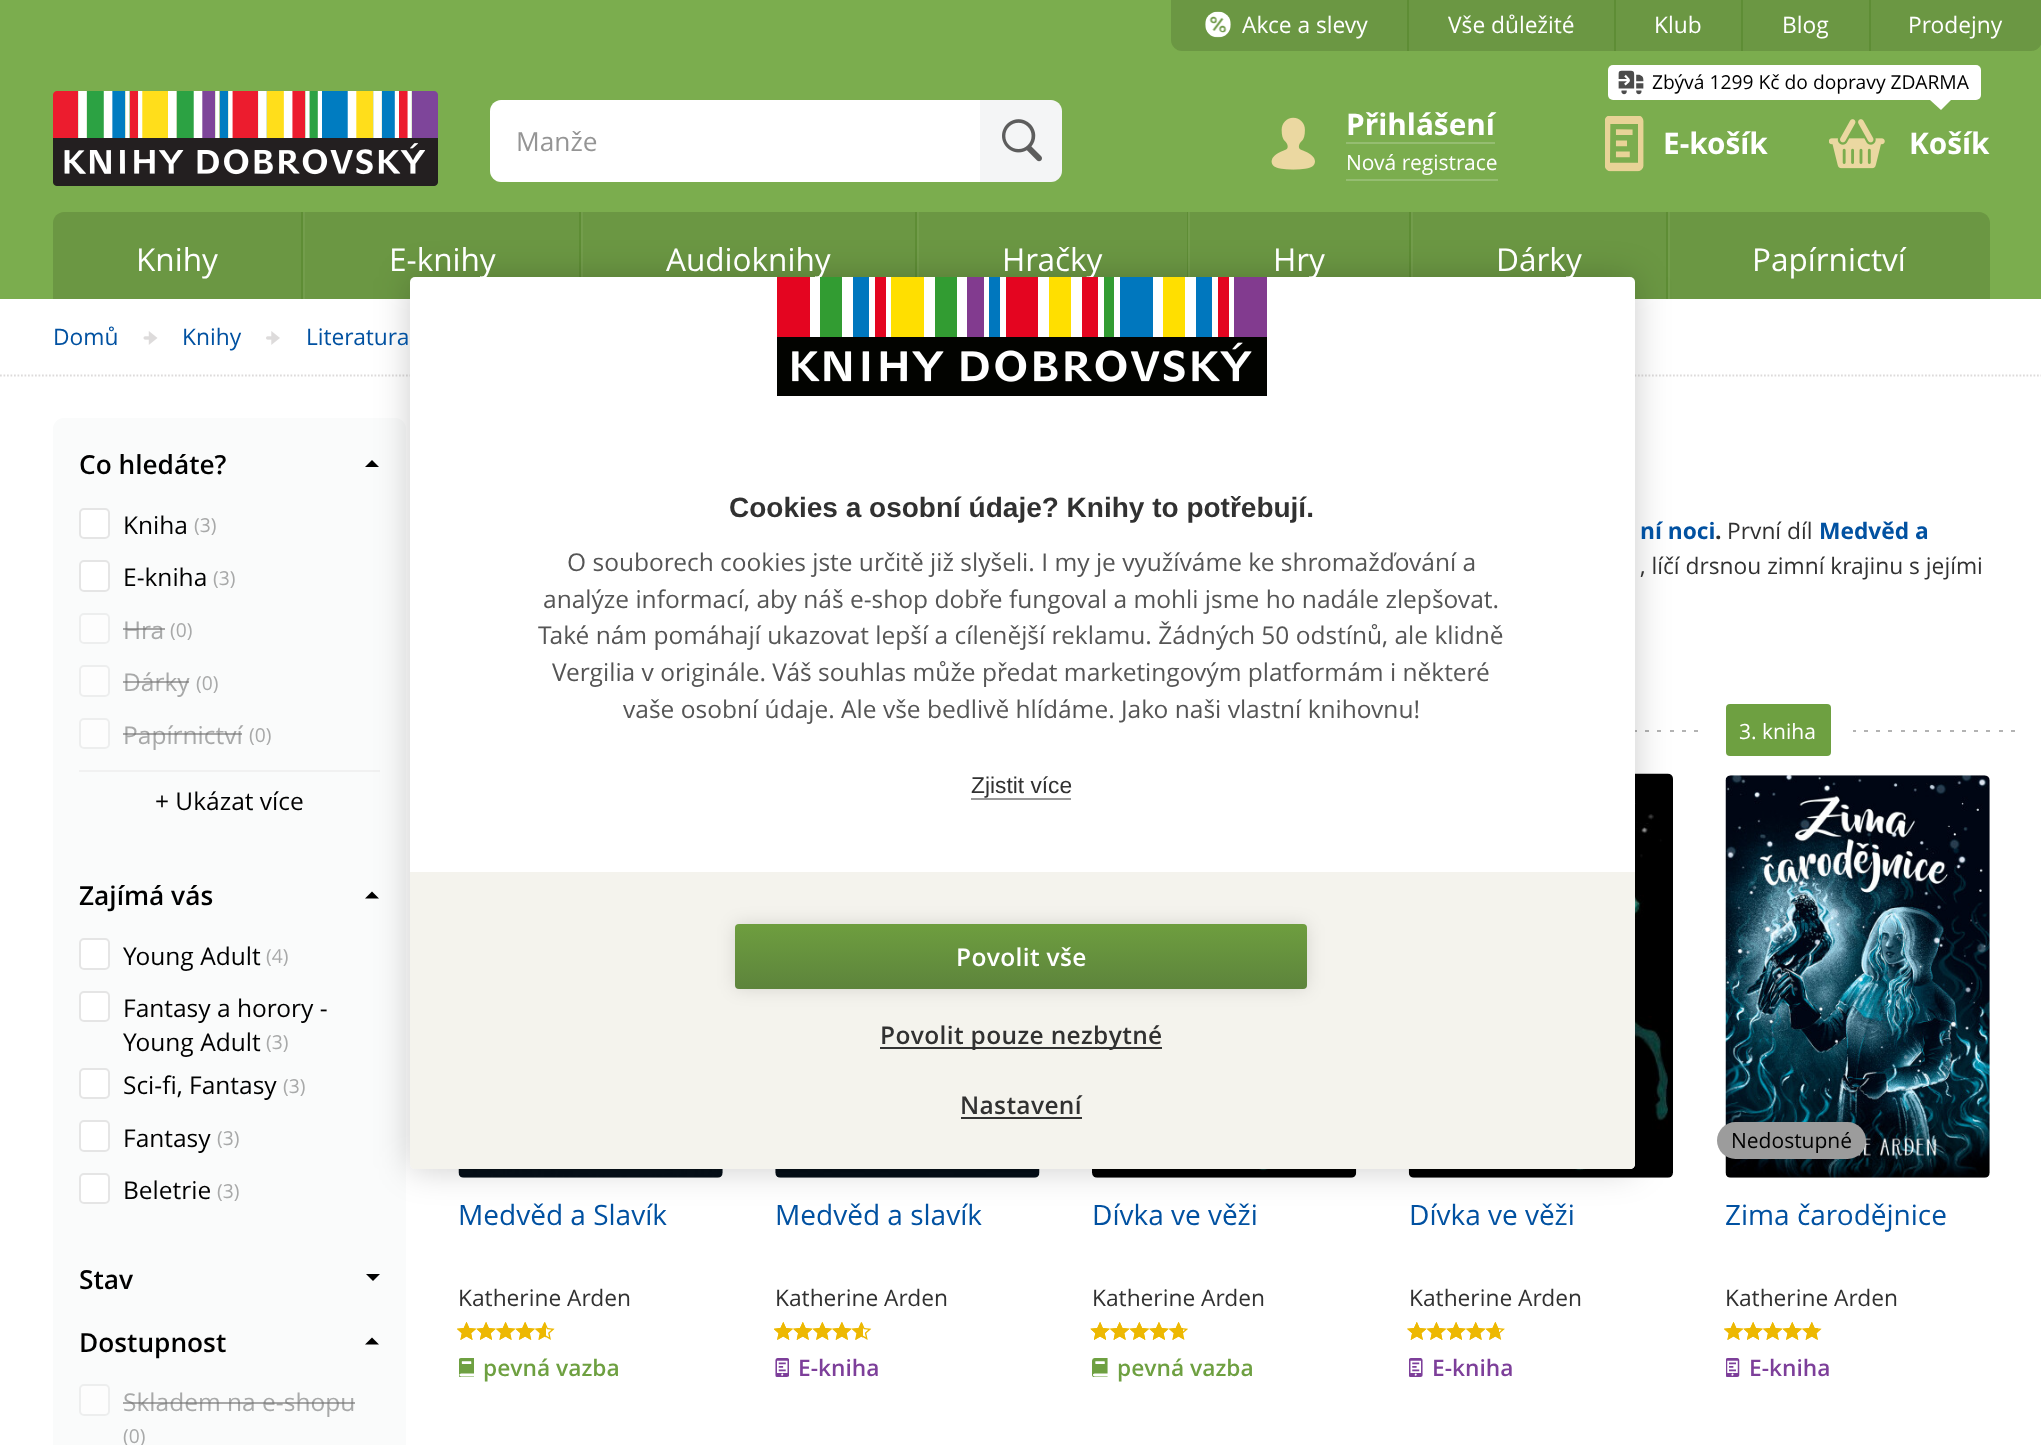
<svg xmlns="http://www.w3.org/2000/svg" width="2041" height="1445">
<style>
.a{font:22.75px Open Sans;fill:#fff}
.b{font:31.5px Open Sans;fill:#fff}
.c{font:26.25px Open Sans;fill:#959595}
.d{font:bold 29.75px Open Sans;fill:#fff}
.e{font:21px Open Sans;fill:#fff}
.f{font:19.25px Open Sans;fill:#000}
.g{font:22.75px Open Sans;fill:#0151a1}
.h{font:600 26.25px Open Sans;fill:#000}
.i{font:24.5px Open Sans;fill:#000}
.j{font:19.25px Open Sans;fill:#a8a9a9}
.k{font:24.5px Open Sans;fill:#a8a9a9}
.l{font:bold 22.75px Open Sans;fill:#0151a1}
.m{font:bold 22.75px Open Sans;fill:#313131}
.n{font:22.75px Open Sans;fill:#313131}
.o{font:28px Open Sans;fill:#0151a1}
.p{font:600 22.75px Open Sans;fill:#6ea041}
.q{font:600 22.75px Open Sans;fill:#7d3f9a}
.r{font:21px Open Sans;fill:#000}
.s{font:bold 28px Liberation Sans;fill:#313131}
.t{font:24.5px Open Sans;fill:#555}
.u{font:22.75px Liberation Sans;fill:#313131}
.v{font:600 24.5px Open Sans;letter-spacing:0.35px;fill:#fff}
.w{font:600 24.5px Open Sans;letter-spacing:0.35px;fill:#313131}
</style>
<defs>
<linearGradient id="g1" gradientUnits="userSpaceOnUse" x1="1021" y1="924" x2="1021" y2="989"><stop offset="0" stop-color="#6e9e3f"/><stop offset="1" stop-color="#5d843c"/></linearGradient>
</defs>
<rect width="100%" height="100%" fill="#7bad4e"/>
<path fill="#6b9743" d="M1171-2h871v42c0 6-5 11-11 11h-849c-6 0-11-5-11-11z"/>
<image href="1.png" x="1205" y="11" width="26" height="27"/>
<path fill="#5e8d35" d="M1407 0h2v51H1407z"/>
<path fill="#5e8d35" d="M1614 0h2v51H1614z"/>
<path fill="#5e8d35" d="M1741 0h2v51H1741z"/>
<path fill="#5e8d35" d="M1869 0h2v51H1869z"/>
<path fill="#6b9743" d="M64 212h1915c6 0 11 5 11 11v76h-1937v-76c0-6 5-11 11-11z"/>
<path fill="#5e8d35" d="M301 212h2v87H301z"/>
<path fill="#5e8d35" d="M579 212h2v65H579z"/>
<path fill="#739d4c" d="M303 212h2v87H303z"/>
<path fill="#5e8d35" d="M915 212h2v65H915z"/>
<path fill="#739d4c" d="M581 212h2v65H581z"/>
<path fill="#5e8d35" d="M1187 212h1v65H1187z"/>
<path fill="#739d4c" d="M917 212h2v65H917z"/>
<path fill="#5e8d35" d="M1409 212h2v65H1409z"/>
<path fill="#739d4c" d="M1188 212h2v65H1188z"/>
<path fill="#5e8d35" d="M1666 212h2v87H1666z"/>
<path fill="#739d4c" d="M1411 212h2v65H1411z"/>
<path fill="#739d4c" d="M1668 212h2v87H1668z"/>
<image href="2.png" x="53" y="91" width="385" height="95"/>
<path fill="#fff" d="M501 100h479v82h-479c-6 0-11-5-11-11v-60c0-6 5-11 11-11z"/>
<path fill="#f4f5f6" d="M980 100h2v82H980z"/>
<path fill="#f4f5f6" d="M982 100h69c6 0 11 5 11 11v60c0 6-5 11-11 11h-69z"/>
<image href="3.png" x="1002" y="119" width="40" height="43"/>
<image href="4.png" x="1271" y="117" width="44" height="53"/>
<path fill="#95bd71" d="M1346 142h149v2H1346z"/>
<path fill="#95bd71" d="M1346 179h152v2H1346z"/>
<rect fill="#fff" x="1608" y="65" width="373" height="35" rx="5"/>
<image href="5.png" x="1618" y="70" width="26" height="25"/>
<path fill="#fff" d="M1930 100h21l-10 10z"/>
<image href="6.png" x="1829" y="119" width="56" height="50"/>
<image href="7.png" x="1605" y="116" width="39" height="56"/>
<path fill="#fff" d="M0 299h2041v1146H0z"/>
<path fill="none" stroke="#dddbdb" stroke-width="1.8" stroke-dasharray="1.75 1.75" d="M0 375.5h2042"/>
<image href="8.png" x="143" y="331" width="15" height="14"/>
<image href="9.png" x="266" y="331" width="14" height="14"/>
<rect fill="#fafbfb" x="53" y="418" width="353" height="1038" rx="11"/>
<path fill="#000" d="M379 467h-14l7-7z"/>
<rect fill="#fff" stroke="#e5e5e5" stroke-width="2" x="80" y="509" width="29" height="29" rx="4"/>
<rect fill="#fff" stroke="#e5e5e5" stroke-width="2" x="80" y="561" width="29" height="30" rx="4"/>
<rect fill="#fdfdfd" stroke="#edeeee" stroke-width="2" x="80" y="614" width="29" height="29" rx="4"/>
<rect fill="#fdfdfd" stroke="#edeeee" stroke-width="2" x="80" y="666" width="29" height="30" rx="4"/>
<rect fill="#fdfdfd" stroke="#edeeee" stroke-width="2" x="80" y="719" width="29" height="29" rx="4"/>
<path fill="#f1f1f1" d="M79 770h301v2H79z"/>
<path fill="#000" d="M379 898.5h-14l7-7z"/>
<rect fill="#fff" stroke="#e5e5e5" stroke-width="2" x="80" y="939" width="29" height="30" rx="4"/>
<rect fill="#fff" stroke="#e5e5e5" stroke-width="2" x="80" y="992" width="29" height="29" rx="4"/>
<rect fill="#fff" stroke="#e5e5e5" stroke-width="2" x="80" y="1069" width="29" height="29" rx="4"/>
<rect fill="#fff" stroke="#e5e5e5" stroke-width="2" x="80" y="1121" width="29" height="30" rx="4"/>
<rect fill="#fff" stroke="#e5e5e5" stroke-width="2" x="80" y="1174" width="29" height="29" rx="4"/>
<path fill="#000" d="M366 1274h14l-7 7z"/>
<path fill="#000" d="M379 1344.5h-14l7-7z"/>
<rect fill="#fdfdfd" stroke="#edeeee" stroke-width="2" x="80" y="1385" width="29" height="30" rx="4"/>
<image href="10.png" x="458" y="1169" width="265" height="9"/>
<image href="11.png" x="457" y="1322" width="98" height="18"/>
<image href="12.png" x="457" y="1322" width="89" height="18"/>
<image href="13.png" x="459" y="1358" width="15" height="19"/>
<image href="14.png" x="775" y="1169" width="265" height="9"/>
<image href="15.png" x="774" y="1322" width="98" height="18"/>
<image href="16.png" x="774" y="1322" width="89" height="18"/>
<image href="17.png" x="775" y="1358" width="14" height="19"/>
<image href="18.png" x="1092" y="1169" width="265" height="9"/>
<image href="19.png" x="1090" y="1322" width="98" height="18"/>
<image href="20.png" x="1090" y="1322" width="93" height="18"/>
<image href="21.png" x="1092" y="1358" width="16" height="19"/>
<image href="22.png" x="1635" y="730" width="63" height="2"/>
<image href="23.png" x="1408" y="773" width="265" height="405"/>
<image href="24.png" x="1407" y="1322" width="98" height="18"/>
<image href="25.png" x="1407" y="1322" width="92" height="18"/>
<image href="26.png" x="1409" y="1358" width="14" height="19"/>
<rect fill="#6ea041" x="1726" y="704" width="105" height="52" rx="4"/>
<image href="27.png" x="1853" y="730" width="162" height="2"/>
<image href="28.png" x="1725" y="775" width="265" height="403"/>
<rect fill="#9c9c9c" x="1717" y="1122" width="149" height="37" rx="18.5"/>
<image href="29.png" x="1724" y="1322" width="98" height="18"/>
<image href="30.png" x="1724" y="1322" width="94" height="18"/>
<image href="31.png" x="1726" y="1358" width="14" height="19"/>
<rect fill="#00000033" filter="blur(17.5px)" x="410" y="277" width="1225" height="892" rx="5"/>
<rect fill="#fff" x="410" y="277" width="1225" height="892" rx="5"/>
<path fill="#999" d="M971 798h100v2H971z"/>
<path fill="#f4f3ed" d="M410 872h1225v292c0 3-2 5-5 5h-1215c-3 0-5-2-5-5z"/>
<rect fill="#0000001f" filter="blur(9px)" x="735" y="924" width="572" height="65" rx="4"/>
<rect fill="url(#g1)" x="735" y="924" width="572" height="65" rx="4"/>
<path fill="#333" d="M880 1047h282v2H880z"/>
<path fill="#333" d="M961 1117h121v2H961z"/>
<text class="a" x="1242" y="33">Akce a slevy</text>
<text class="a" x="1448" y="33">Vše důležité</text>
<text class="a" x="1654" y="33">Klub</text>
<text class="a" x="1782" y="33">Blog</text>
<text class="a" x="1908" y="33">Prodejny</text>
<text class="b" x="136" y="271">Knihy</text>
<text class="b" x="389" y="271">E-knihy</text>
<text class="b" x="666" y="271">Audioknihy</text>
<text class="b" x="1002" y="271">Hračky</text>
<text class="b" x="1273" y="271">Hry</text>
<text class="b" x="1496" y="271">Dárky</text>
<text class="b" x="1752" y="271">Papírnictví</text>
<text class="c" x="516" y="151">Manže</text>
<text class="d" x="1346" y="135">Přihlášení</text>
<text class="e" x="1346" y="170">Nová registrace</text>
<text class="f" x="1652" y="89">Zbývá 1299 Kč do dopravy ZDARMA</text>
<text class="d" x="1909" y="154">Košík</text>
<text class="d" x="1663" y="154">E-košík</text>
<text class="g" x="53" y="345">Domů</text>
<text class="g" x="182" y="345">Knihy</text>
<text class="g" x="306" y="345">Literatura</text>
<text class="h" x="79" y="474">Co hledáte?</text>
<text class="i" x="123" y="534">Kniha</text>
<text class="j" x="194" y="532">(3)</text>
<text class="i" x="123" y="586">E-kniha</text>
<text class="j" x="213" y="585">(3)</text>
<text class="k" x="123" y="639">Hra</text>
<path fill="#72727299" d="M123 628h42v2H123z"/>
<text class="j" x="170" y="637">(0)</text>
<text class="k" x="123" y="691">Dárky</text>
<path fill="#72727299" d="M123 681h66v2H123z"/>
<text class="j" x="196" y="690">(0)</text>
<text class="k" x="123" y="744">Papírnictví</text>
<path fill="#72727299" d="M123 733h119v2H123z"/>
<text class="j" x="249" y="742">(0)</text>
<text class="i" x="155" y="810">+ Ukázat více</text>
<text class="h" x="79" y="905">Zajímá vás</text>
<text class="i" x="123" y="965">Young Adult</text>
<text class="j" x="266" y="963">(4)</text>
<text class="i" x="123" y="1017">Fantasy a horory -</text>
<text class="i" x="123" y="1051">Young Adult</text>
<text class="j" x="266" y="1049">(3)</text>
<text class="i" x="123" y="1094">Sci-fi, Fantasy</text>
<text class="j" x="283" y="1093">(3)</text>
<text class="i" x="123" y="1147">Fantasy</text>
<text class="j" x="217" y="1145">(3)</text>
<text class="i" x="123" y="1199">Beletrie</text>
<text class="j" x="217" y="1198">(3)</text>
<text class="h" x="79" y="1289">Stav</text>
<text class="h" x="79" y="1352">Dostupnost</text>
<text class="k" x="123" y="1411">Skladem na e-shopu</text>
<path fill="#72727299" d="M123 1402h232v2H123z"/>
<text class="j" x="123" y="1443">(0)</text>
<text class="l" x="1640" y="539">ní noci</text>
<text class="m" x="1715" y="539">.</text>
<text class="n" x="1727" y="539">První díl</text>
<text class="l" x="1819" y="539">Medvěd a</text>
<text class="n" x="1640" y="574">, líčí drsnou zimní krajinu s jejími</text>
<text class="o" x="458" y="1225">Medvěd a Slavík</text>
<text class="n" x="458" y="1306">Katherine Arden</text>
<text class="p" x="483" y="1376">pevná vazba</text>
<text class="o" x="775" y="1225">Medvěd a slavík</text>
<text class="n" x="775" y="1306">Katherine Arden</text>
<text class="q" x="798" y="1376">E-kniha</text>
<text class="o" x="1092" y="1225">Dívka ve věži</text>
<text class="n" x="1092" y="1306">Katherine Arden</text>
<text class="p" x="1117" y="1376">pevná vazba</text>
<text class="o" x="1409" y="1225">Dívka ve věži</text>
<text class="n" x="1409" y="1306">Katherine Arden</text>
<text class="q" x="1432" y="1376">E-kniha</text>
<text class="e" x="1739" y="739">3. kniha</text>
<text class="r" x="1731" y="1148">Nedostupné</text>
<text class="o" x="1725" y="1225">Zima čarodějnice</text>
<text class="n" x="1725" y="1306">Katherine Arden</text>
<text class="q" x="1749" y="1376">E-kniha</text>
<image href="32.png" x="777" y="277" width="490" height="119"/>
<text class="s" x="729" y="517">Cookies a osobní údaje? Knihy to potřebují.</text>
<text class="t" x="567" y="571">O souborech cookies jste určitě již slyšeli. I my je využíváme ke shromažďování a</text>
<text class="t" x="543" y="608">analýze informací, aby náš e-shop dobře fungoval a mohli jsme ho nadále zlepšovat.</text>
<text class="t" x="538" y="644">Také nám pomáhají ukazovat lepší a cílenější reklamu. Žádných 50 odstínů, ale klidně</text>
<text class="t" x="552" y="681">Vergilia v originále. Váš souhlas může předat marketingovým platformám i některé</text>
<text class="t" x="623" y="718">vaše osobní údaje. Ale vše bedlivě hlídáme. Jako naši vlastní knihovnu!</text>
<text class="u" x="971" y="793">Zjistit více</text>
<text class="v" x="956" y="966">Povolit vše</text>
<text class="w" x="880" y="1044">Povolit pouze nezbytné</text>
<text class="w" x="960" y="1114">Nastavení</text>
</svg>
